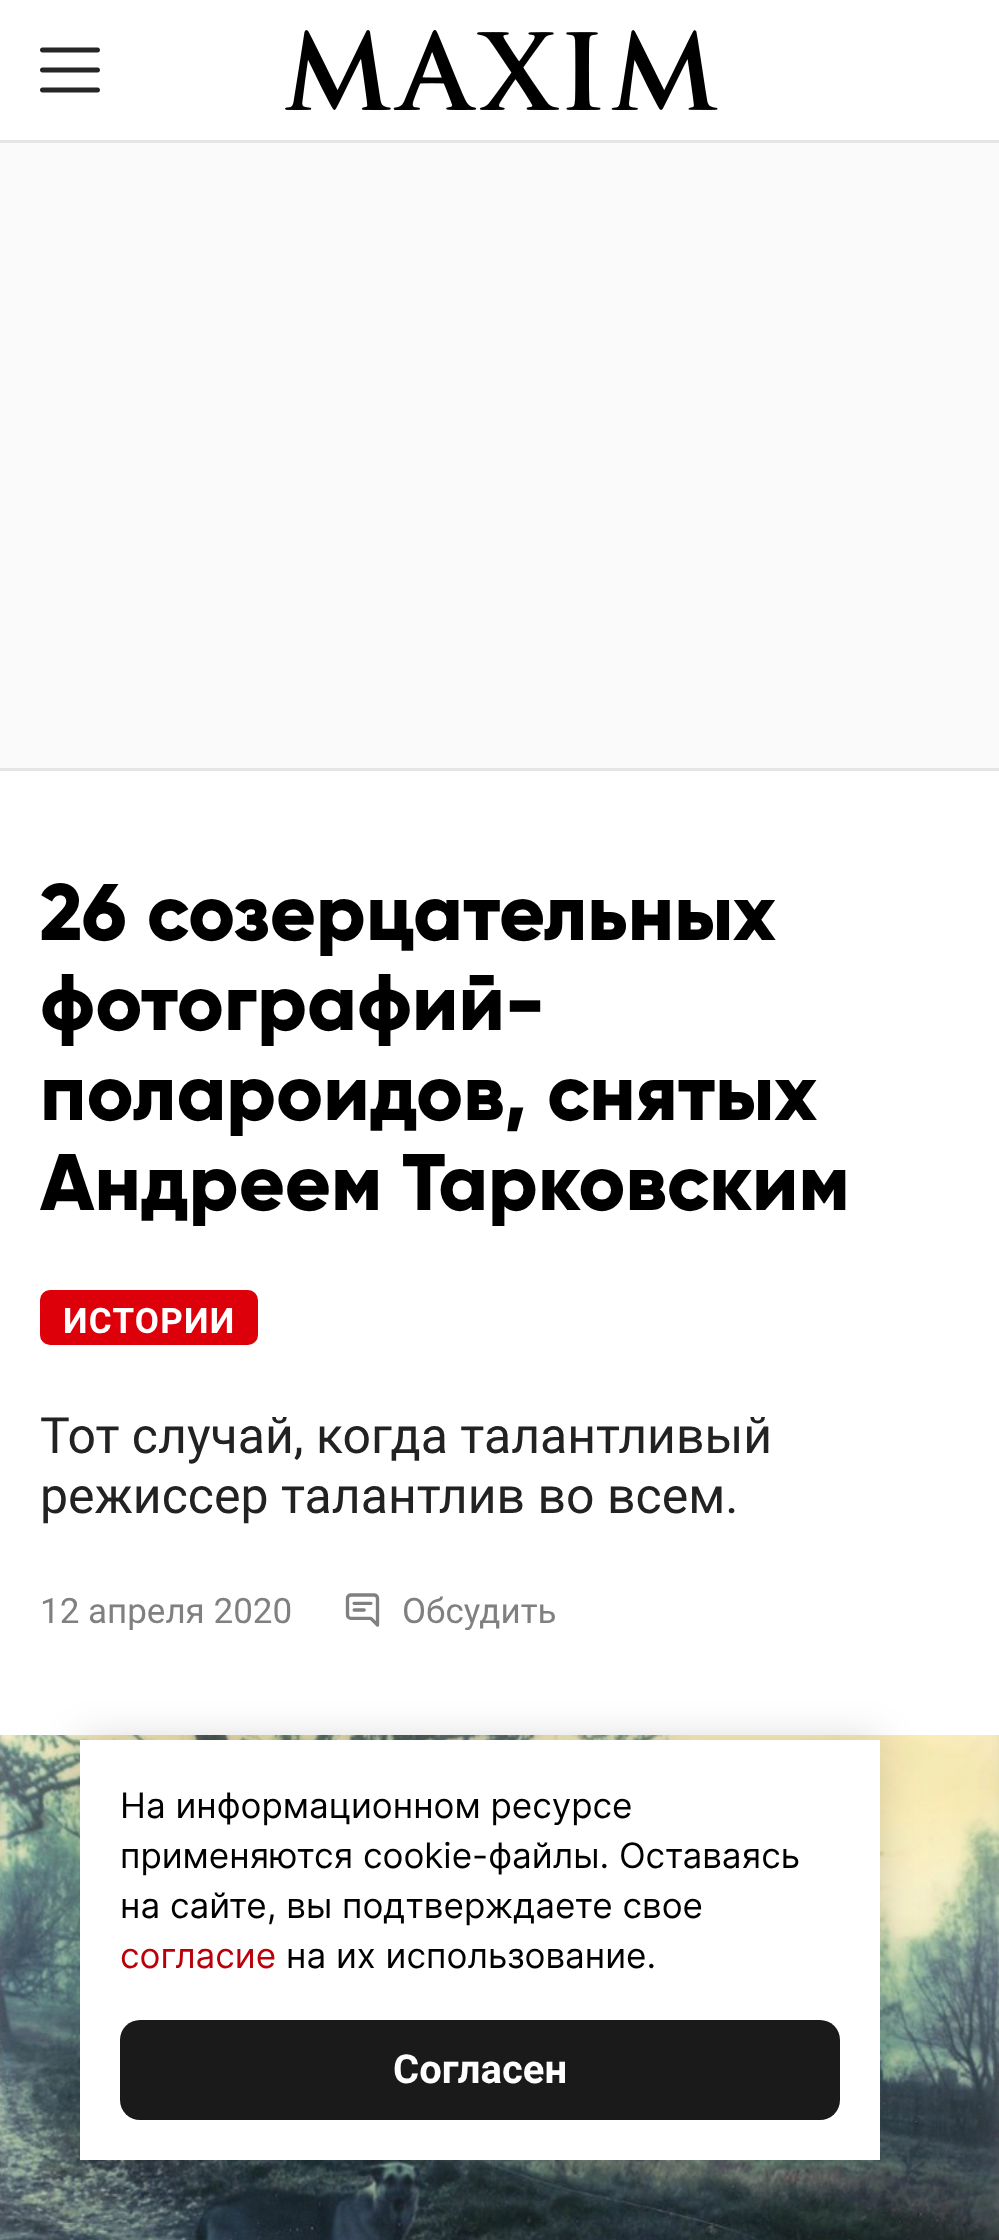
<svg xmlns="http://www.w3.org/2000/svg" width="999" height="2240">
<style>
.a{font:800 80px Gilroy;fill:#000}
.b{font:bold 35px Roboto;letter-spacing:1.25px;fill:#fff}
.c{font:50px Roboto;fill:#222}
.d{font:35px Roboto;fill:#808080}
.e{font:35px Inter;fill:#000}
.f{font:35px Inter;fill:#ba0009}
.g{font:bold 40px Roboto;fill:#fff}
</style>
<defs>
<clipPath id="clip1"><path d="M343 1590h215v40H343z"/></clipPath>
</defs>
<rect width="100%" height="100%" fill="#fff"/>
<image href="1.png" x="40" y="47" width="60" height="46"/>
<image href="2.png" x="285" y="30" width="433" height="80"/>
<path fill="#e5e5e5" d="M0 140h999v3H0z"/>
<path fill="#e5e5e5" d="M0 768h999v3H0z"/>
<path fill="#fafafa" d="M0 143h999v625H0z"/>
<rect fill="#dd000b" stroke="#dd000b" stroke-width="3" x="41.5" y="1291.5" width="215" height="52" rx="8.5"/>
<image href="3.png" x="345" y="1593" width="35" height="34"/>
<image href="4.png" x="0" y="1735" width="999" height="505"/>
<path fill="#00000029" filter="blur(20px)" d="M80 1740h800v420H80z"/>
<path fill="#fff" d="M80 1740h800v420H80z"/>
<rect fill="#1a1a1a" x="120" y="2020" width="720" height="100" rx="20"/>
<text class="a" x="40" y="940">26 созерцательных</text>
<text class="a" x="40" y="1030">фотографий-</text>
<text class="a" x="40" y="1120">полароидов, снятых</text>
<text class="a" x="40" y="1210">Андреем Тарковским</text>
<text class="b" x="63" y="1333">ИСТОРИИ</text>
<text class="c" x="40" y="1453">Тот случай, когда талантливый</text>
<text class="c" x="40" y="1513">режиссер талантлив во всем.</text>
<text class="d" x="40" y="1623">12 апреля 2020</text>
<g clip-path="url(#clip1)">
<text class="d" x="402" y="1623">Обсудить</text>
</g>
<text class="e" x="120" y="1818">На информационном ресурсе</text>
<text class="e" x="120" y="1868">применяются cookie-файлы. Оставаясь</text>
<text class="e" x="120" y="1918">на сайте, вы подтверждаете свое</text>
<text class="f" x="120" y="1968">согласие</text>
<text class="e" x="286" y="1968">на их использование.</text>
<text class="g" x="393" y="2083">Согласен</text>
</svg>
